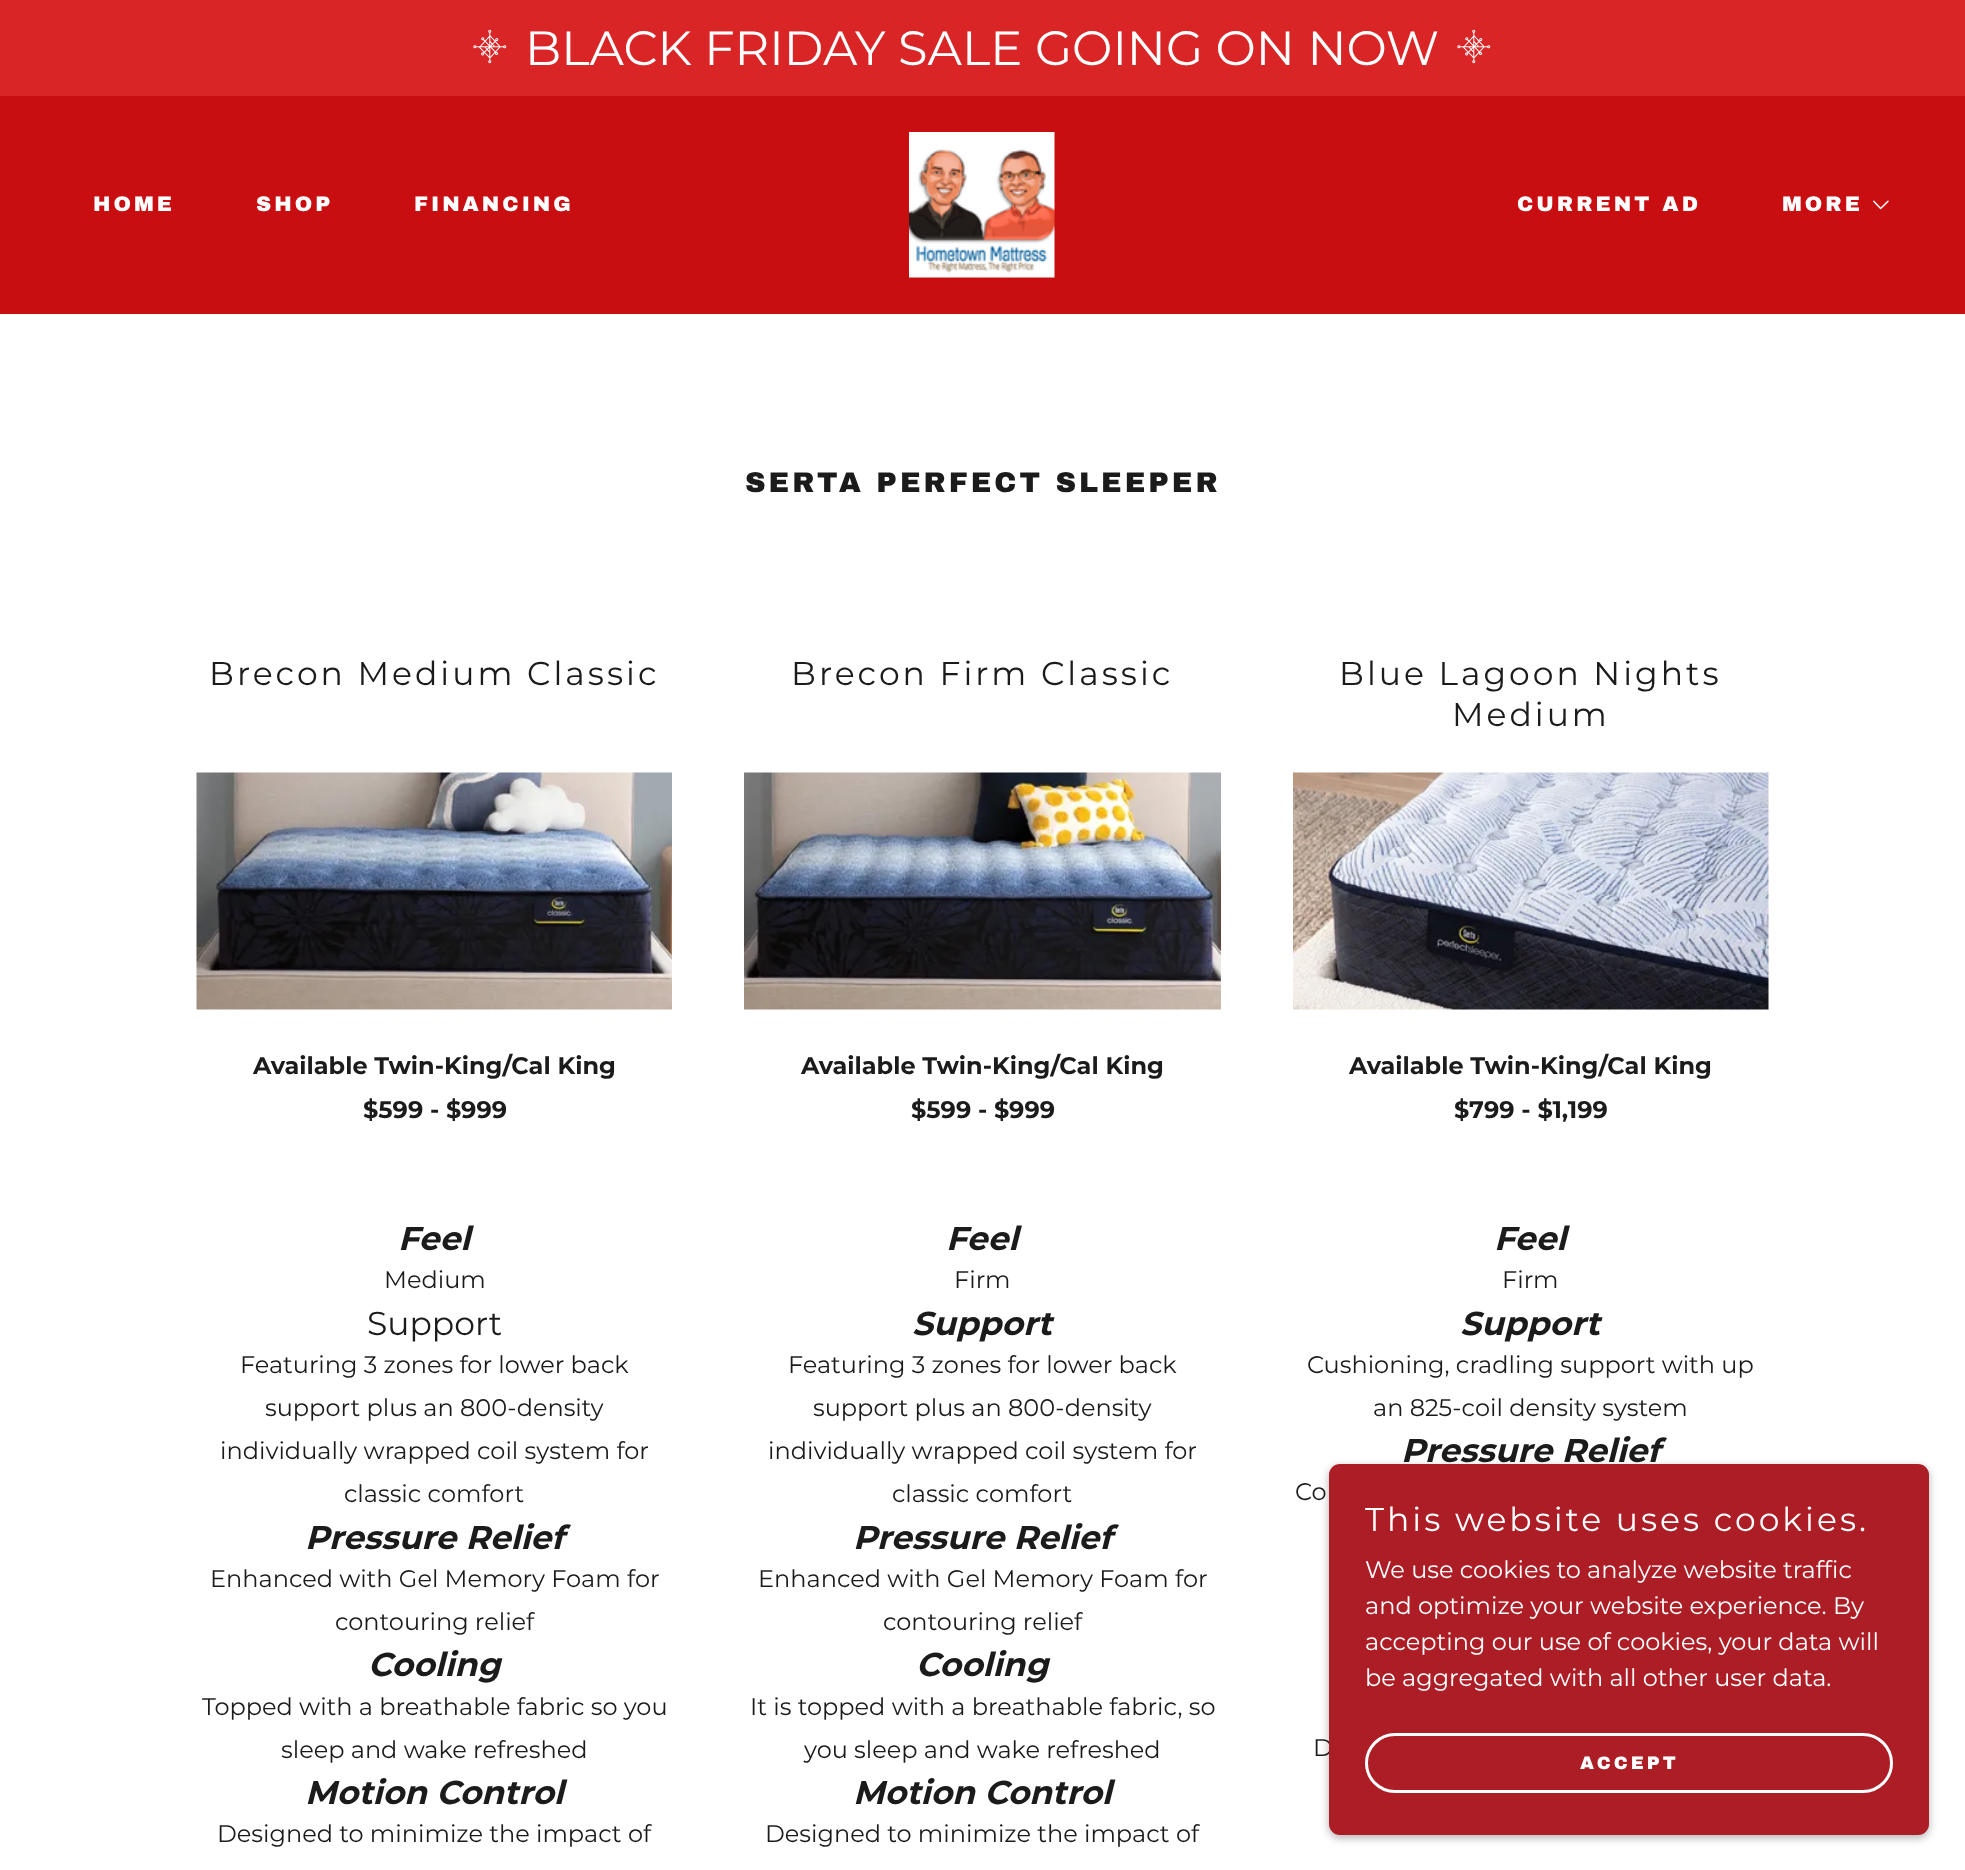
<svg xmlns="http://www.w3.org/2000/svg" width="1965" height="1870">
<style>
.a{font:48px Montserrat;fill:#fff}
.b{font:900 21px Archivo Black;letter-spacing:3px;fill:#fff}
.c{font:900 28.5px Archivo Black;letter-spacing:3px;fill:#1b1b1b}
.d{font:33px Montserrat;letter-spacing:3px;fill:#1b1b1b}
.e{font:bold 24px Montserrat;fill:#1b1b1b}
.f{font:italic bold 33px Montserrat;fill:#1b1b1b}
.g{font:24px Montserrat;fill:#1b1b1b}
.h{font:33px Montserrat;fill:#1b1b1b}
.i{font:33px Montserrat;letter-spacing:3px;fill:#fff}
.j{font:24px Montserrat;fill:#fff}
.k{font:900 18px Archivo Black;letter-spacing:3px;fill:#fff}
</style>
<rect width="100%" height="100%" fill="#fff"/>
<path fill="#c90e12" d="M0 96h1965v218H0z"/>
<path fill="#da2527" d="M0 0h1965v96H0z"/>
<image href="1.png" x="473" y="29" width="34" height="35"/>
<image href="1.png" x="1457" y="29" width="34" height="35"/>
<image href="2.png" x="909" y="132" width="146" height="146"/>
<image href="3.png" x="1873" y="200" width="16" height="10"/>
<image href="4.png" x="196" y="772" width="476" height="238"/>
<image href="5.png" x="744" y="772" width="477" height="238"/>
<image href="6.png" x="1293" y="772" width="476" height="238"/>
<rect fill="#0000004d" filter="blur(4.5px)" x="1329" y="1467" width="600" height="371" rx="11"/>
<text class="a" x="525" y="65">BLACK FRIDAY SALE GOING ON NOW</text>
<text class="b" x="93" y="211">HOME</text>
<text class="b" x="256" y="211">SHOP</text>
<text class="b" x="414" y="211">FINANCING</text>
<text class="b" x="1517" y="211">CURRENT AD</text>
<text class="b" x="1782" y="211">MORE</text>
<text class="c" x="745" y="492">SERTA PERFECT SLEEPER</text>
<text class="d" x="209" y="685">Brecon Medium Classic</text>
<text class="e" x="253" y="1074">Available Twin-King/Cal King</text>
<text class="e" x="363" y="1118">$599 - $999</text>
<text class="f" x="398" y="1250">Feel</text>
<text class="g" x="384" y="1288">Medium</text>
<text class="h" x="367" y="1335">Support</text>
<text class="g" x="240" y="1373">Featuring 3 zones for lower back</text>
<text class="g" x="265" y="1416">support plus an 800-density</text>
<text class="g" x="220" y="1459">individually wrapped coil system for</text>
<text class="g" x="344" y="1502">classic comfort</text>
<text class="f" x="305" y="1549">Pressure Relief</text>
<text class="g" x="210" y="1587">Enhanced with Gel Memory Foam for</text>
<text class="g" x="335" y="1630">contouring relief</text>
<text class="f" x="368" y="1676">Cooling</text>
<text class="g" x="202" y="1715">Topped with a breathable fabric so you</text>
<text class="g" x="281" y="1758">sleep and wake refreshed</text>
<text class="f" x="305" y="1804">Motion Control</text>
<text class="g" x="217" y="1842">Designed to minimize the impact of</text>
<text class="d" x="791" y="685">Brecon Firm Classic</text>
<text class="e" x="801" y="1074">Available Twin-King/Cal King</text>
<text class="e" x="911" y="1118">$599 - $999</text>
<text class="f" x="946" y="1250">Feel</text>
<text class="g" x="954" y="1288">Firm</text>
<text class="f" x="912" y="1335">Support</text>
<text class="g" x="788" y="1373">Featuring 3 zones for lower back</text>
<text class="g" x="813" y="1416">support plus an 800-density</text>
<text class="g" x="768" y="1459">individually wrapped coil system for</text>
<text class="g" x="892" y="1502">classic comfort</text>
<text class="f" x="853" y="1549">Pressure Relief</text>
<text class="g" x="758" y="1587">Enhanced with Gel Memory Foam for</text>
<text class="g" x="883" y="1630">contouring relief</text>
<text class="f" x="916" y="1676">Cooling</text>
<text class="g" x="750" y="1715">It is topped with a breathable fabric, so</text>
<text class="g" x="804" y="1758">you sleep and wake refreshed</text>
<text class="f" x="853" y="1804">Motion Control</text>
<text class="g" x="765" y="1842">Designed to minimize the impact of</text>
<text class="d" x="1339" y="685">Blue Lagoon Nights</text>
<text class="d" x="1452" y="726">Medium</text>
<text class="e" x="1349" y="1074">Available Twin-King/Cal King</text>
<text class="e" x="1454" y="1118">$799 - $1,199</text>
<text class="f" x="1494" y="1250">Feel</text>
<text class="g" x="1502" y="1288">Firm</text>
<text class="f" x="1460" y="1335">Support</text>
<text class="g" x="1307" y="1373">Cushioning, cradling support with up</text>
<text class="g" x="1373" y="1416">an 825-coil density system</text>
<text class="f" x="1401" y="1462">Pressure Relief</text>
<text class="g" x="1295" y="1500">Co</text>
<text class="g" x="1313" y="1756">D</text>
<rect fill="#ad1d25" x="1329" y="1464" width="600" height="371" rx="11"/>
<text class="i" x="1365" y="1531">This website uses cookies.</text>
<text class="j" x="1365" y="1578">We use cookies to analyze website traffic</text>
<text class="j" x="1365" y="1614">and optimize your website experience. By</text>
<text class="j" x="1365" y="1650">accepting our use of cookies, your data will</text>
<text class="j" x="1365" y="1686">be aggregated with all other user data.</text>
<rect fill="none" stroke="#fff" stroke-width="3" x="1366.5" y="1734.5" width="525" height="57" rx="28.5"/>
<text class="k" x="1580" y="1769">ACCEPT</text>
</svg>
